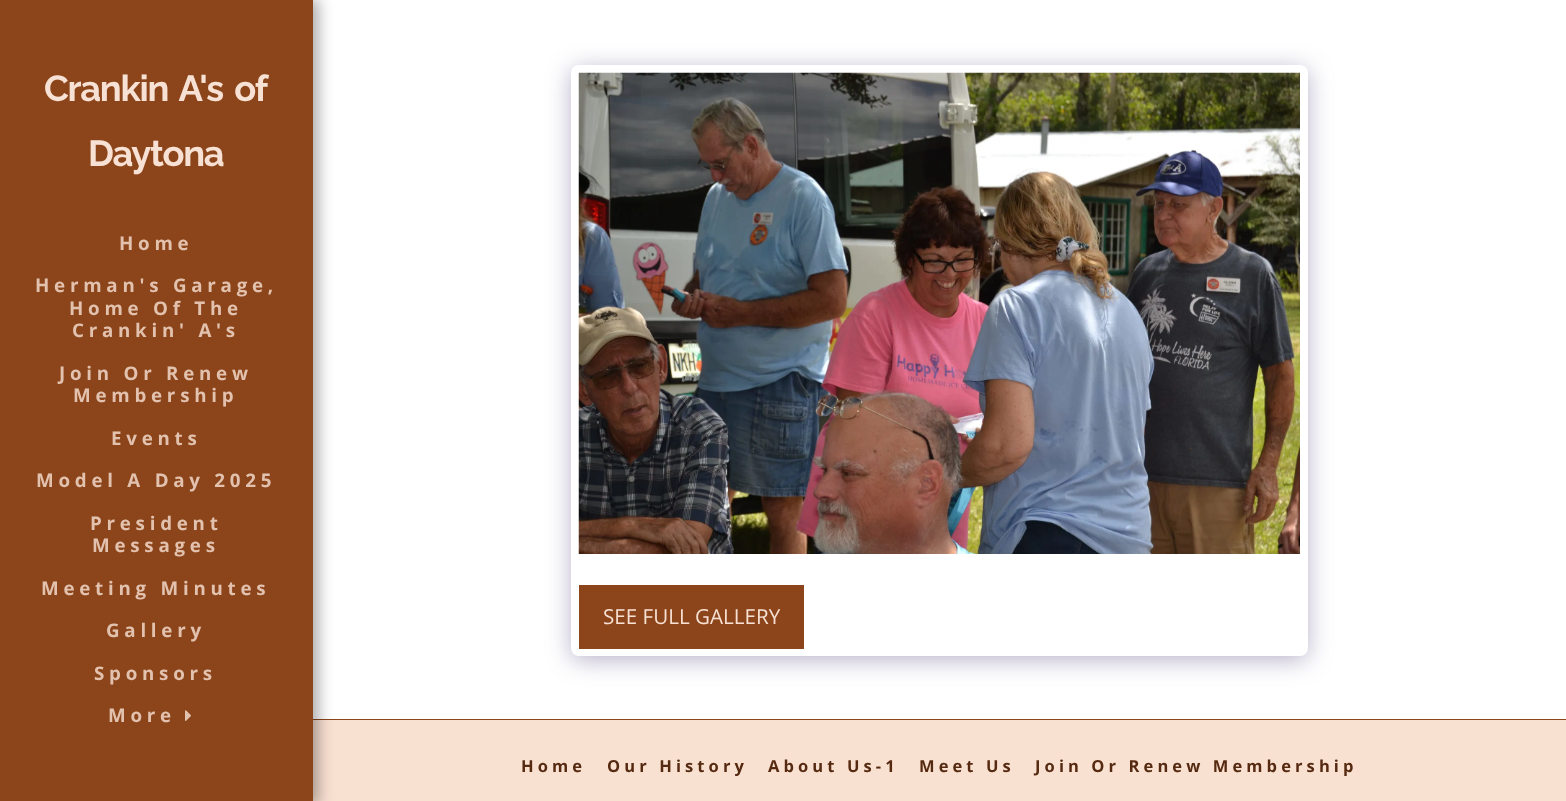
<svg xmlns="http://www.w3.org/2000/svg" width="1566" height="801">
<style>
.a{font:bold 36.25px Raleway;letter-spacing:-1.25px;fill:#f7e1d4}
.b{font:bold 18.75px Open Sans;letter-spacing:4.75px;fill:#e2c2af}
.c{font:20.6px Open Sans;fill:#f7e1d4}
.d{font:bold 16.5px Open Sans;letter-spacing:4.1px;fill:#562a10}
</style>
<rect width="100%" height="100%" fill="#8c451a"/>
<path fill="#fff" d="M313 0h1253v719H313z"/>
<path fill="#f9e1d2" d="M313 720h1253v81H313z"/>
<path fill="#00000059" filter="blur(7.5px)" d="M0 -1h318v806H0z"/>
<path fill="#8c451a" d="M0 0h313v801H0z"/>
<image href="1.png" x="185" y="710" width="6" height="11"/>
<rect fill="#4d3f7a66" filter="blur(12.5px)" x="571" y="69" width="737" height="591" rx="8"/>
<rect fill="#fff" x="571" y="65" width="737" height="591" rx="8"/>
<image href="2.png" x="578" y="72" width="722" height="482"/>
<path fill="#8c451a" d="M579 585h225v64H579z"/>
<text class="a" x="44" y="101" word-spacing="4">Crankin A's of</text>
<text class="a" x="88" y="166">Daytona</text>
<text class="b" x="119" y="250">Home</text>
<text class="b" x="35" y="292">Herman's Garage,</text>
<text class="b" x="69" y="315">Home Of The</text>
<text class="b" x="72" y="337">Crankin' A's</text>
<text class="b" x="59" y="380">Join Or Renew</text>
<text class="b" x="73" y="402">Membership</text>
<text class="b" x="111" y="445">Events</text>
<text class="b" x="36" y="487">Model A Day 2025</text>
<text class="b" x="90" y="530">President</text>
<text class="b" x="92" y="552">Messages</text>
<text class="b" x="41" y="595">Meeting Minutes</text>
<text class="b" x="106" y="637">Gallery</text>
<text class="b" x="94" y="680">Sponsors</text>
<text class="b" x="108" y="722">More</text>
<text class="c" x="603" y="624">SEE FULL GALLERY</text>
<text class="d" x="521" y="772">Home</text>
<text class="d" x="607" y="772">Our History</text>
<text class="d" x="768" y="772">About Us-1</text>
<text class="d" x="919" y="772">Meet Us</text>
<text class="d" x="1035" y="772">Join Or Renew Membership</text>
</svg>
